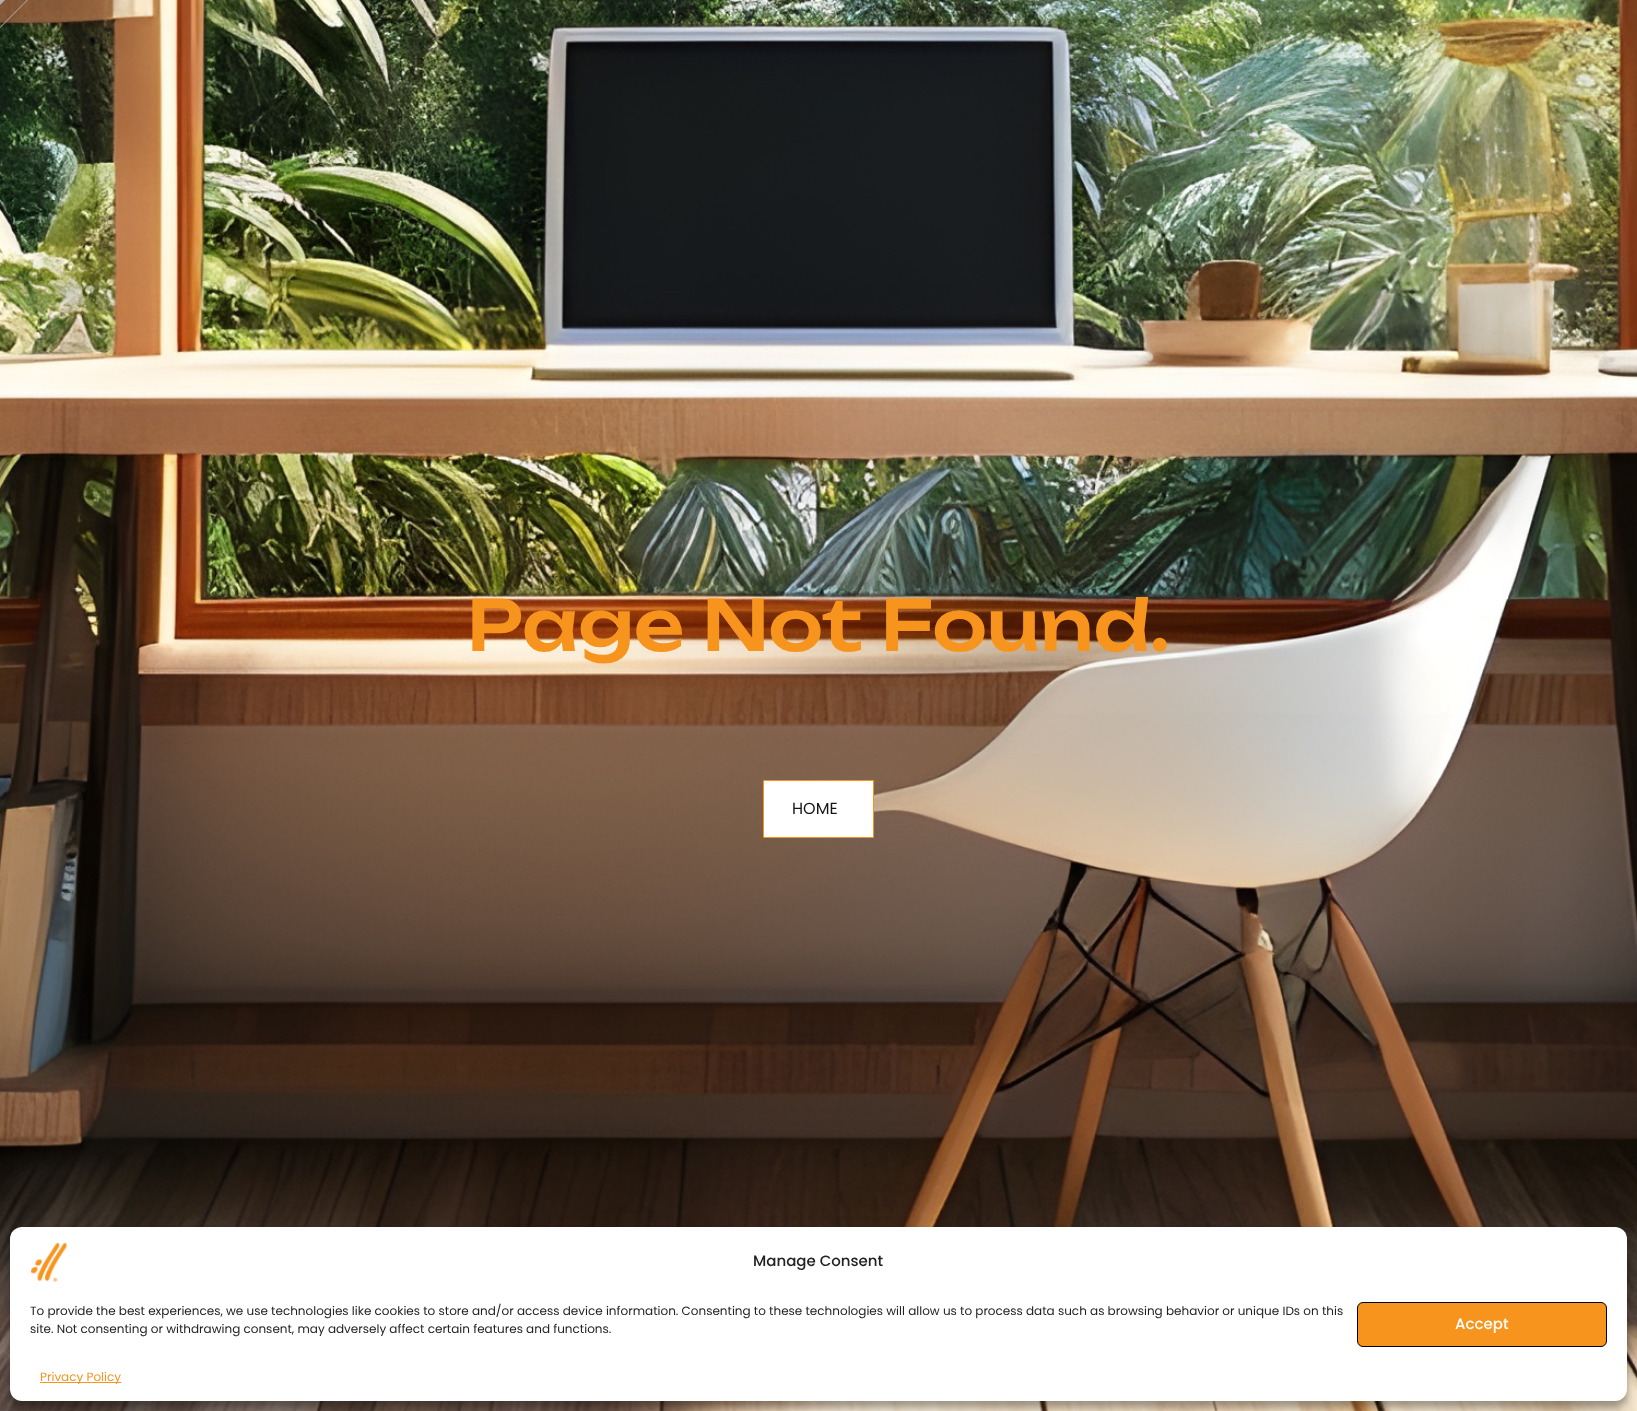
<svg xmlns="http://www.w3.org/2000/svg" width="1637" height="1411">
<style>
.a{font:500 70px Unbounded;fill:#f7941d}
.b{font:16px Poppins;fill:#161618}
.c{font:500 15px Poppins;fill:#222}
.d{font:12px Poppins;fill:#222}
.e{font:500 15px Poppins;fill:#fff}
.f{font:12px Poppins;fill:#f7941d}
</style>
<rect width="100%" height="100%" fill="#fff"/>
<image href="1.png" x="0" y="0" width="1637" height="1411"/>
<path fill="none" stroke="#b0b0b0" d="M0-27.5l27.5 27.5l-27.5 27.5l-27.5-27.5z"/>
<path fill="#b0b0b0" d="M0-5l5 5l-5 5l-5-5z"/>
<path fill="none" stroke="#f7941d" d="M763.5 780.5h110v57H763.5z"/>
<path fill="#fff" d="M764 781h109v56H764z"/>
<rect fill="#0000003b" filter="blur(3px)" x="10" y="1233" width="1617" height="174" rx="12"/>
<rect fill="#00000030" filter="blur(10px)" x="10" y="1237" width="1617" height="174" rx="12"/>
<rect fill="#fff" x="10" y="1227" width="1617" height="174" rx="12"/>
<image href="2.png" x="31" y="1242" width="37" height="40"/>
<rect fill="#f7941d" stroke="#000" x="1357.5" y="1302.5" width="249" height="44" rx="5.5"/>
<path fill="#f7941d" d="M40 1382h81v1H40z"/>
<text class="a" x="467" y="651">Page Not Found.</text>
<text class="b" x="792" y="814">HOME</text>
<text class="c" x="753" y="1266">Manage Consent</text>
<text class="d" x="30" y="1315">To provide the best experiences, we use technologies like cookies to store and/or access device information. Consenting to these technologies will allow us to process data such as browsing behavior or unique IDs on this</text>
<text class="d" x="30" y="1333">site. Not consenting or withdrawing consent, may adversely affect certain features and functions.</text>
<text class="e" x="1455" y="1329">Accept</text>
<text class="f" x="40" y="1381">Privacy Policy</text>
</svg>
